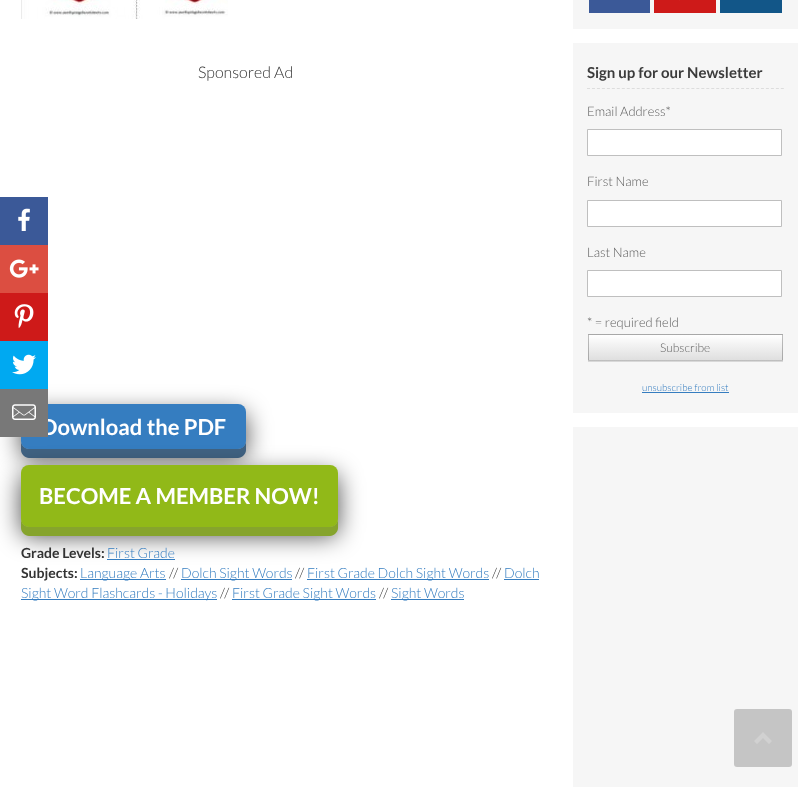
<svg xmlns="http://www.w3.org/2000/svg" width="812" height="787">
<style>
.a{font:300 16px Lato;fill:#333}
.b{font:bold 22px Lato;fill:#fff}
.c{font:bold 14px Lato;fill:#333}
.d{font:300 14px Lato;fill:#357dc0}
.e{font:300 14px Lato;fill:#333}
.f{font:bold 15px Lato;fill:#3b3b3b}
.g{font:300 13px Lato;fill:#5e5e5e}
.h{font:300 12px Lato;fill:#646464}
.i{font:300 9.75px Lato;fill:#357dc0}
</style>
<defs>
<linearGradient id="g1" gradientUnits="userSpaceOnUse" x1="589" y1="335" x2="589" y2="310"><stop offset="0" stop-color="#dfdfdf"/><stop offset="1" stop-color="#fff"/></linearGradient>
<linearGradient id="g2" gradientUnits="userSpaceOnUse" x1="589" y1="360" x2="589" y2="335"><stop offset="0" stop-color="#dfdfdf"/><stop offset="1" stop-color="#fff"/></linearGradient>
<linearGradient id="g3" gradientUnits="userSpaceOnUse" x1="589" y1="385" x2="589" y2="360"><stop offset="0" stop-color="#dfdfdf"/><stop offset="1" stop-color="#fff"/></linearGradient>
</defs>
<rect width="100%" height="100%" fill="#fff"/>
<image href="1.png" x="21" y="0" width="207" height="19"/>
<rect fill="#000000b3" filter="blur(12.5px)" x="21" y="413" width="225" height="45" rx="8"/>
<path fill="#406282" d="M21 441v9c0 4 4 8 8 8h209c4 0 8-4 8-8v-9c0 4-4 8-8 8h-209c-4 0-8-4-8-8z"/>
<rect fill="#357dc0" x="21" y="404" width="225" height="45" rx="8"/>
<rect fill="#000000b3" filter="blur(12.5px)" x="21" y="474" width="317" height="62" rx="8"/>
<path fill="#86a42d" d="M21 519v9c0 4 4 8 8 8h301c4 0 8-4 8-8v-9c0 4-4 8-8 8h-301c-4 0-8-4-8-8z"/>
<rect fill="#91b918" x="21" y="465" width="317" height="62" rx="8"/>
<path fill="#357dc0" d="M107 559h68v1H107z"/>
<path fill="#357dc0" d="M80 579h86v1H80z"/>
<path fill="#357dc0" d="M181 579h111v1H181z"/>
<path fill="#357dc0" d="M307 579h182v1H307z"/>
<path fill="#357dc0" d="M504 579h35v1H504z"/>
<path fill="#357dc0" d="M21 599h196v1H21z"/>
<path fill="#357dc0" d="M232 599h144v1H232z"/>
<path fill="#357dc0" d="M391 599h73v1H391z"/>
<path fill="#f6f6f6" d="M573 0h225v29H573z"/>
<path fill="#3b5998" d="M589 0h61v13H589z"/>
<path fill="#ce1a19" d="M654 0h62v13H654z"/>
<path fill="#cf1f1e" d="M679 0h1v1H679z"/>
<path fill="#125688" d="M720 0h62v13H720z"/>
<path fill="#f6f6f6" d="M573 43h225v370H573z"/>
<path fill="none" stroke="#ddd" stroke-dasharray="3 1.97" d="M587 88.5h197"/>
<path fill="#fff" stroke="#bfbfbf" d="M587.5 129.5h194v26H587.5z"/>
<path fill="#fff" stroke="#bfbfbf" d="M587.5 200.5h194v26H587.5z"/>
<path fill="#fff" stroke="#bfbfbf" d="M587.5 270.5h194v26H587.5z"/>
<path fill="#0000001f" filter="blur(0.5px)" d="M588 335h195v27H588z"/>
<path fill="url(#g1)" d="M588 334h195v1H588z"/>
<path fill="url(#g2)" d="M588 335h195v25H588z"/>
<path fill="url(#g3)" d="M588 360h195v1H588z"/>
<path fill="none" stroke="#00000040" d="M588.5 334.5h194v26H588.5z"/>
<path fill="#357dc0" d="M642 392h87v1H642z"/>
<path fill="#f6f6f6" d="M573 427h225v360H573z"/>
<path fill="#3b5998" d="M0 197h48v48H0z"/>
<image href="2.png" x="18" y="208" width="12" height="23"/>
<path fill="#dc4e41" d="M0 245h48v48H0z"/>
<image href="3.png" x="9" y="259" width="30" height="19"/>
<path fill="#ce1a19" d="M0 293h48v48H0z"/>
<image href="4.png" x="14" y="304" width="20" height="25"/>
<path fill="#00a9f1" d="M0 341h48v48H0z"/>
<image href="5.png" x="12" y="354" width="24" height="21"/>
<rect fill="#c5c5c5" x="734" y="709" width="58" height="58" rx="3"/>
<path fill="#d1d1d1" d="M772 741l-9-9l-9 9l3 3l6-6l6 6z"/>
<text class="a" x="198" y="78">Sponsored Ad</text>
<text class="b" x="41" y="435">Download the PDF</text>
<text class="b" x="39" y="504">BECOME A MEMBER NOW!</text>
<text class="c" x="21" y="558">Grade Levels:</text>
<text class="d" x="107" y="558">First Grade</text>
<text class="c" x="21" y="578">Subjects:</text>
<text class="d" x="80" y="578">Language Arts</text>
<text class="e" x="169" y="578">//</text>
<text class="d" x="181" y="578">Dolch Sight Words</text>
<text class="e" x="295" y="578">//</text>
<text class="d" x="307" y="578">First Grade Dolch Sight Words</text>
<text class="e" x="492" y="578">//</text>
<text class="d" x="504" y="578">Dolch</text>
<text class="d" x="21" y="598">Sight Word Flashcards - Holidays</text>
<text class="e" x="220" y="598">//</text>
<text class="d" x="232" y="598">First Grade Sight Words</text>
<text class="e" x="379" y="598">//</text>
<text class="d" x="391" y="598">Sight Words</text>
<text class="f" x="587" y="78">Sign up for our Newsletter</text>
<text class="g" x="587" y="116">Email Address*</text>
<text class="g" x="587" y="186">First Name</text>
<text class="g" x="587" y="257">Last Name</text>
<text class="g" x="587" y="327">* = required field</text>
<text class="h" x="660" y="352">Subscribe</text>
<text class="i" x="642" y="391">unsubscribe from list</text>
<path fill="#787878" d="M0 389h48v48H0z"/>
<image href="6.png" x="12" y="404" width="24" height="16"/>
</svg>
